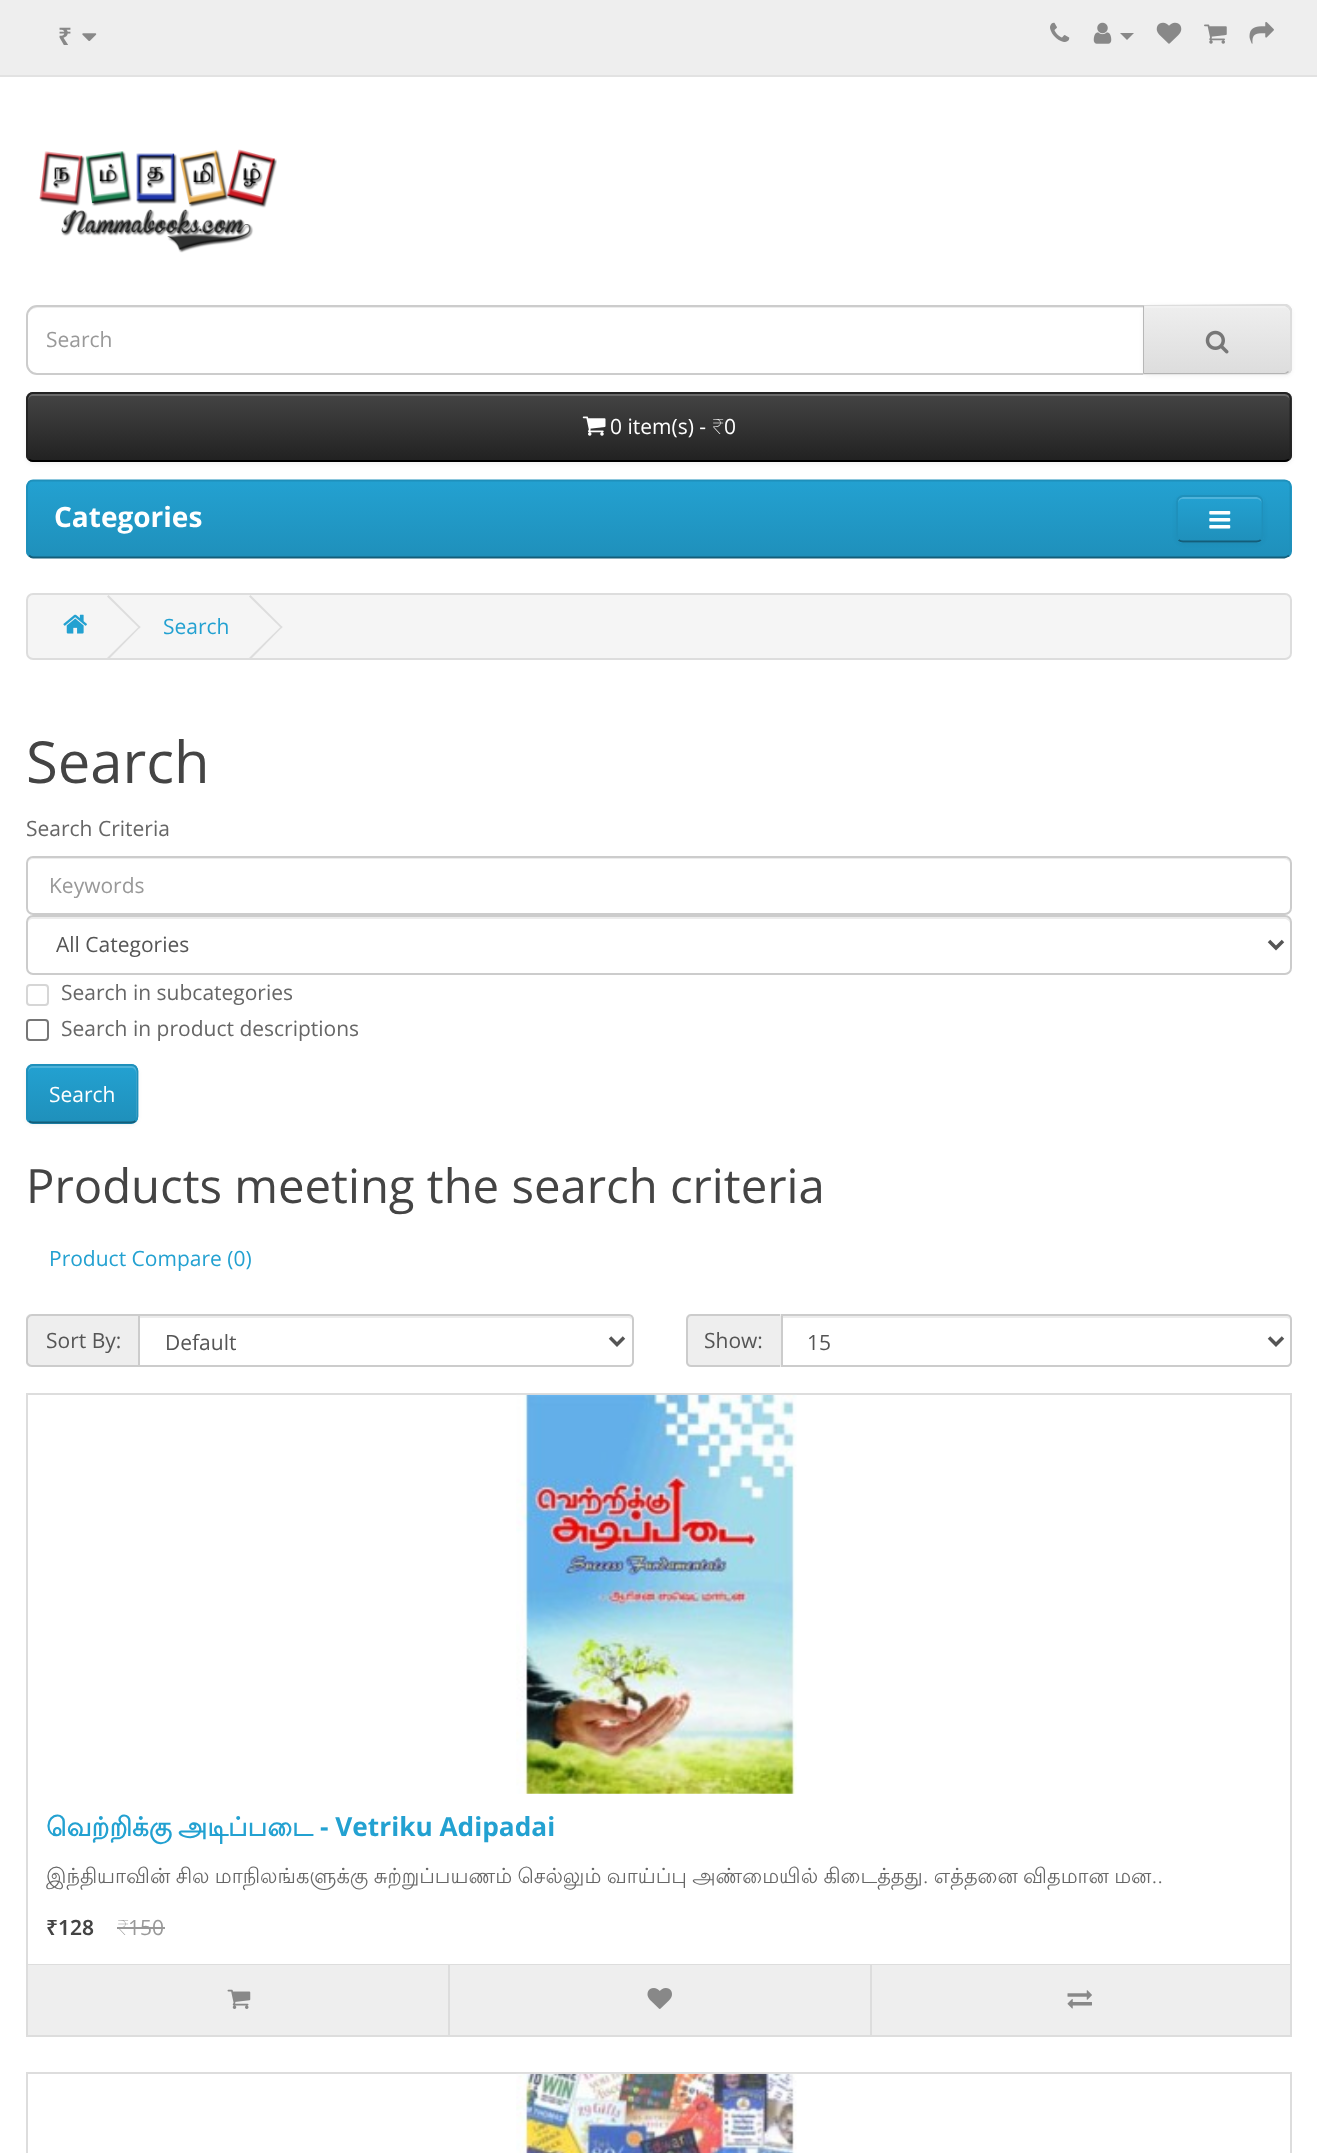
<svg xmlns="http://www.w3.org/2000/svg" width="1317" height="2153">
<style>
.a{font:bold 24px Noto Sans;fill:#888}
.b{font:21px Open Sans;fill:#999}
.c{font:21px Open Sans;fill:#fff}
.d{font:100 21px Noto Sans;fill:#fff}
.e{font:bold 28px Open Sans;fill:#fff}
.f{font:21px Open Sans;fill:#23a1d1}
.g{font:58px Open Sans;fill:#444}
.h{font:21px Open Sans;fill:#666}
.i{font:21px Open Sans;fill:#555}
.j{font:47.25px Open Sans;fill:#444}
.k{font:bold 26.25px Lohit Tamil;fill:#23a1d1}
.l{font:bold 26.25px Open Sans;fill:#23a1d1}
.m{font:21px Lohit Tamil;fill:#666}
.n{font:600 21px Noto Sans;fill:#444}
.o{font:100 21px Noto Sans;fill:#999}
</style>
<defs>
<clipPath id="clip1"><path d="M1143 305h142c4 0 7 3 7 7v56c0 4-3 7-7 7h-142z"/></clipPath>
<linearGradient id="g1" gradientUnits="userSpaceOnUse" x1="1217" y1="306" x2="1217" y2="373"><stop offset="0" stop-color="#eee"/><stop offset="1" stop-color="#ddd"/></linearGradient>
<clipPath id="clip2"><rect x="26" y="392" width="1266" height="70" rx="7"/></clipPath>
<linearGradient id="g2" gradientUnits="userSpaceOnUse" x1="659" y1="394" x2="659" y2="460"><stop offset="0" stop-color="#444"/><stop offset="1" stop-color="#222"/></linearGradient>
<clipPath id="clip3"><rect x="26" y="480" width="1266" height="78" rx="7"/></clipPath>
<linearGradient id="g3" gradientUnits="userSpaceOnUse" x1="659" y1="481" x2="659" y2="557"><stop offset="0" stop-color="#23a1d1"/><stop offset="1" stop-color="#1f90bb"/></linearGradient>
<clipPath id="clip4"><rect x="1176" y="495" width="88" height="48" rx="7"/></clipPath>
<linearGradient id="g4" gradientUnits="userSpaceOnUse" x1="1220" y1="497" x2="1220" y2="541"><stop offset="0" stop-color="#23a1d1"/><stop offset="1" stop-color="#1f90bb"/></linearGradient>
<clipPath id="clip5"><rect x="26" y="1064" width="112" height="60" rx="7"/></clipPath>
<linearGradient id="g5" gradientUnits="userSpaceOnUse" x1="82" y1="1066" x2="82" y2="1122"><stop offset="0" stop-color="#23a1d1"/><stop offset="1" stop-color="#1f90bb"/></linearGradient>
</defs>
<rect width="100%" height="100%" fill="#fff"/>
<path fill="#eee" d="M0 0h1317v75H0z"/>
<path fill="#e2e2e2" d="M0 75h1317v2H0z"/>
<image href="1.png" x="82" y="33" width="15" height="8"/>
<image href="2.png" x="1050" y="22" width="20" height="20"/>
<image href="3.png" x="1093" y="22" width="19" height="22"/>
<path fill="#888" d="M1120 33h14l-7 7z"/>
<image href="4.png" x="1156" y="22" width="26" height="22"/>
<image href="5.png" x="1204" y="24" width="23" height="20"/>
<image href="6.png" x="1249" y="22" width="25" height="22"/>
<image href="7.png" x="39" y="149" width="238" height="104"/>
<path fill="#ececec" d="M37 308h1106v-2h-1106c-6 0-9 5-9 11c0-5 4-9 9-9z"/>
<path fill="none" stroke="#ccc" stroke-width="2" d="M37 306h1107v68h-1107c-5.5 0-10-4.5-10-10v-48c0-5.5 4.5-10 10-10z"/>
<rect fill="#0000000d" filter="blur(2px)" x="1143" y="306" width="149" height="70" rx="7"/>
<path fill="#e7e7e7" d="M1143 305h142c4 0 7 3 7 7v56c0 4-3 7-7 7h-142z"/>
<g clip-path="url(#clip1)">
<path fill="url(#g1)" d="M1144 306h148v67H1144z"/>
</g>
<path fill="#f1f1f1" d="M1145 306v2h139c3 0 6 2 6 5c0-3-1-7-5-7z"/>
<path fill="#ddd" d="M1143 305l144-1l3 2l-2 2l-3-2h-141z"/>
<path fill="#ddd" d="M1292 370l-3 2l-1-1l2-3v-57l-2-3l2-2l2 3z"/>
<path fill="#b3b3b3" d="M1289 372c-1 1-3 2-5 2h-141l1-1h141l3-2z"/>
<path fill="#b7b7b7" d="M1144 306v67l-1 1v-69z"/>
<image href="8.png" x="1205" y="330" width="24" height="24"/>
<rect fill="#0000000d" filter="blur(2px)" x="26" y="394" width="1266" height="70" rx="7"/>
<rect fill="#363636" x="26" y="392" width="1266" height="70" rx="7"/>
<g clip-path="url(#clip2)">
<path fill="url(#g2)" d="M26 394h1266v66H26z"/>
</g>
<path fill="#696969" d="M33 396h1251c3 0 6 2 6 5v-2c0-3-2-5-5-5h-1252c-3 0-5 2-5 5v2c0-3 2-5 5-5z"/>
<path fill="none" stroke="#000" stroke-width="1.8" d="M1289 459.5c-1.5 1-3 1.5-4.5 1.5h-1251.5c-1.5 0-3-.5-4-1.5"/>
<path fill="none" stroke="#222" stroke-width="1.8" d="M29 459.5c-1-1.5-2-3-2-4.5v-56c0-1.5 1-3 2-4.5c1-1 2.5-1.5 4-1.5h1251.5c1.5 0 3 .5 4.5 1.5c1 1.5 1.5 3 1.5 4.5v56c0 1.5-.5 3-1.5 4.5"/>
<image href="9.png" x="582" y="416" width="24" height="20"/>
<g clip-path="url(#clip3)">
<path fill="url(#g3)" d="M26 481h1266v76H26z"/>
</g>
<path fill="none" stroke="#145e7a" stroke-width="1.8" d="M1289 555.5c-1.5 1-3 2-4.5 2h-1251.5c-1.5 0-3-1-4-2"/>
<path fill="none" stroke="#1f90bb" stroke-width="1.8" d="M29 555.5c-1-1-2-2.5-2-4.5v-64.5c0-1.5 1-3 2-4.5c1-1 2.5-1.5 4-1.5h1251.5c1.5 0 3 .5 4.5 1.5c1 1.5 1.5 3 1.5 4.5v64.5c0 2-.5 3.5-1.5 4.5"/>
<rect fill="#0000000d" filter="blur(2px)" x="1176" y="497" width="88" height="47" rx="7"/>
<rect fill="#229ac8" x="1176" y="495" width="88" height="48" rx="7"/>
<g clip-path="url(#clip4)">
<path fill="url(#g4)" d="M1176 497h88v44H1176z"/>
</g>
<path fill="#4fb3da" d="M1183 499h73c3 0 6 2 6 5c0-10-9-7-17-7h-50c-8 0-17-3-17 7c0-3 2-5 5-5z"/>
<path fill="none" stroke="#145e7a" stroke-width="1.8" d="M1261 540c-1.5 1-3 1.5-4.5 1.5h-73.5c-1.5 0-3-.5-4.5-1.5"/>
<path fill="none" stroke="#1f90bb" stroke-width="1.8" d="M1178.5 540c-1-1.5-1.5-3-1.5-4.5v-33.5c0-1.5 .5-3 1.5-4c1.5-1 3-2 4.5-2h73.5c1.5 0 3 1 4.5 2c1 1 1.5 2.5 1.5 4v33.5c0 1.5-.5 3-1.5 4.5"/>
<image href="10.png" x="1209" y="511" width="22" height="18"/>
<rect fill="#f5f5f5" stroke="#ddd" stroke-width="2" x="27" y="594" width="1264" height="65" rx="6"/>
<image href="11.png" x="63" y="614" width="24" height="20"/>
<path fill="#ddd" d="M107 596.5l1.5-1.5l32 32l-1 1.5z"/>
<path fill="#ddd" d="M107 658l32.5-32l1 1l-32 32.5z"/>
<path fill="#ddd" d="M249 596.5l1.5-1.5l32 32l-1 1.5z"/>
<path fill="#ddd" d="M249 658l32.5-32l1 1l-32 32.5z"/>
<path fill="#ececec" d="M33 859h1251c3 0 6 3 6 5c0-3-2-6-5-6h-1252c-3 0-5 3-5 6c0-2 2-5 5-5z"/>
<rect fill="none" stroke="#ccc" stroke-width="2" x="27" y="857" width="1264" height="57" rx="6"/>
<path fill="#ececec" d="M33 919h1251c3 0 6 2 6 5v-2c0-3-2-5-5-5h-1252c-3 0-5 2-5 5v2c0-3 2-5 5-5z"/>
<rect fill="none" stroke="#ccc" stroke-width="2" x="27" y="916" width="1264" height="58" rx="6"/>
<path fill="none" stroke="#555" stroke-width="3.5" d="M1269 941l7 7l7-7"/>
<rect fill="none" stroke="#d6d6d6" stroke-width="2" x="27" y="985" width="21" height="20" rx="3"/>
<rect fill="none" stroke="#767676" stroke-width="2" x="27" y="1020" width="21" height="20" rx="3"/>
<rect fill="#0000000d" filter="blur(2px)" x="26" y="1066" width="112" height="59" rx="7"/>
<rect fill="#229ac8" x="26" y="1064" width="112" height="60" rx="7"/>
<g clip-path="url(#clip5)">
<path fill="url(#g5)" d="M26 1066h112v56H26z"/>
</g>
<path fill="#ffffff33" d="M33 1068h98c3 0 5 2 5 5v45v3c0-1 1-3 1-4v-46c0-3-2-5-5-5h-99c-3 0-5 2-5 5v2c0-3 2-5 5-5z"/>
<path fill="none" stroke="#145e7a" stroke-width="1.8" d="M135.5 1121c-1 1-2.5 1.5-4.5 1.5h-98c-1.5 0-3-.5-4-1.5"/>
<path fill="none" stroke="#1f90bb" stroke-width="1.8" d="M29 1121c-1-1.5-2-3-2-4.5v-45.5c0-1.5 1-3 2-4.5c1-1 2.5-1.5 4-1.5h98c2 0 3.5 .5 4.5 1.5c1 1.5 2 3 2 4.5v45.5c0 1.5-1 3-2 4.5"/>
<path fill="#eee" d="M31 1314h107v53h-107c-3 0-5-2-5-5v-43c0-3 2-5 5-5z"/>
<path fill="#ccc" fill-rule="evenodd" d="M32 1314h106v53h-106c-3 0-6-3-6-5v-42c0-3 3-6 6-6zm0 2h106v49h-106c-2 0-4-2-4-3v-42c0-2 2-4 4-4z"/>
<path fill="#ececec" d="M140 1318h488c2 0 4 1 4 3c0-3-1-5-4-5h-488z"/>
<path fill="none" stroke="#ccc" stroke-width="2" d="M139 1315h490c2 0 4 2 4 4v43c0 2-2 4-4 4h-490z"/>
<path fill="none" stroke="#555" stroke-width="3.5" d="M610 1337.5l7 7l7-7"/>
<path fill="#eee" d="M691 1314h90v53h-90c-3 0-5-2-5-5v-43c0-3 2-5 5-5z"/>
<path fill="#ccc" fill-rule="evenodd" d="M691 1314h89v53h-89c-3 0-5-3-5-5v-42c0-3 2-6 5-6zm0 2h89v49h-89c-2 0-3-2-3-3v-42c0-2 1-4 3-4z"/>
<path fill="#ececec" d="M782 1318h504c2 0 4 1 4 3c0-3-1-5-4-5h-504z"/>
<path fill="none" stroke="#ccc" stroke-width="2" d="M782 1315h505c2 0 4 2 4 4v43c0 2-2 4-4 4h-505z"/>
<path fill="none" stroke="#555" stroke-width="3.5" d="M1269 1337.5l7 7l7-7"/>
<path fill="none" stroke="#ddd" stroke-width="2" d="M27 1394h1264v642H27z"/>
<image href="12.png" x="516" y="1394" width="281" height="400"/>
<path fill="#999" d="M117 1927h48v2H117z"/>
<path fill="#ddd" d="M28 1964h1262v1H28z"/>
<path fill="#eee" d="M28 1965h420v70H28z"/>
<image href="13.png" x="227" y="1989" width="24" height="20"/>
<path fill="#eee" d="M450 1965h420v70H450z"/>
<path fill="#ddd" d="M448 1965h2v70H448z"/>
<image href="14.png" x="647" y="1988" width="25" height="21"/>
<path fill="#eee" d="M872 1965h418v70H872z"/>
<path fill="#ddd" d="M870 1965h2v70H870z"/>
<image href="15.png" x="1067" y="1990" width="25" height="19"/>
<path fill="none" stroke="#ddd" stroke-width="2" d="M27 2073h1264v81H27z"/>
<image href="16.png" x="516" y="2073" width="281" height="80"/>
<text class="a" x="58" y="45">₹</text>
<text class="b" x="46" y="347">Search</text>
<text class="c" x="610" y="434">0 item(s) -</text>
<text class="d" x="712" y="434">₹</text>
<text class="c" x="724" y="434">0</text>
<text class="e" x="54" y="527">Categories</text>
<text class="f" x="163" y="634">Search</text>
<text class="g" x="26" y="783">Search</text>
<text class="h" x="26" y="836">Search Criteria</text>
<text class="b" x="49" y="893">Keywords</text>
<text class="i" x="56" y="952">All Categories</text>
<text class="h" x="61" y="1000">Search in subcategories</text>
<text class="h" x="61" y="1036">Search in product descriptions</text>
<text class="c" x="49" y="1102">Search</text>
<text class="j" x="26" y="1203">Products meeting the search criteria</text>
<text class="f" x="49" y="1266">Product Compare (0)</text>
<text class="i" x="46" y="1348">Sort By:</text>
<text class="i" x="165" y="1350">Default</text>
<text class="i" x="704" y="1348">Show:</text>
<text class="i" x="807" y="1350">15</text>
<text class="k" x="46" y="1836">வெற்றிக்கு</text>
<text class="k" x="178" y="1836">அடிப்படை</text>
<text class="l" x="320" y="1836">- Vetriku Adipadai</text>
<text class="m" x="46" y="1883" word-spacing="-1">இந்தியாவின் சில மாநிலங்களுக்கு சுற்றுப்பயணம் செல்லும் வாய்ப்பு அண்மையில் கிடைத்தது. எத்தனை விதமான மன..</text>
<text class="n" x="46" y="1935">₹128</text>
<text class="o" x="117" y="1935">₹</text>
<text class="b" x="128" y="1935">150</text>
</svg>
